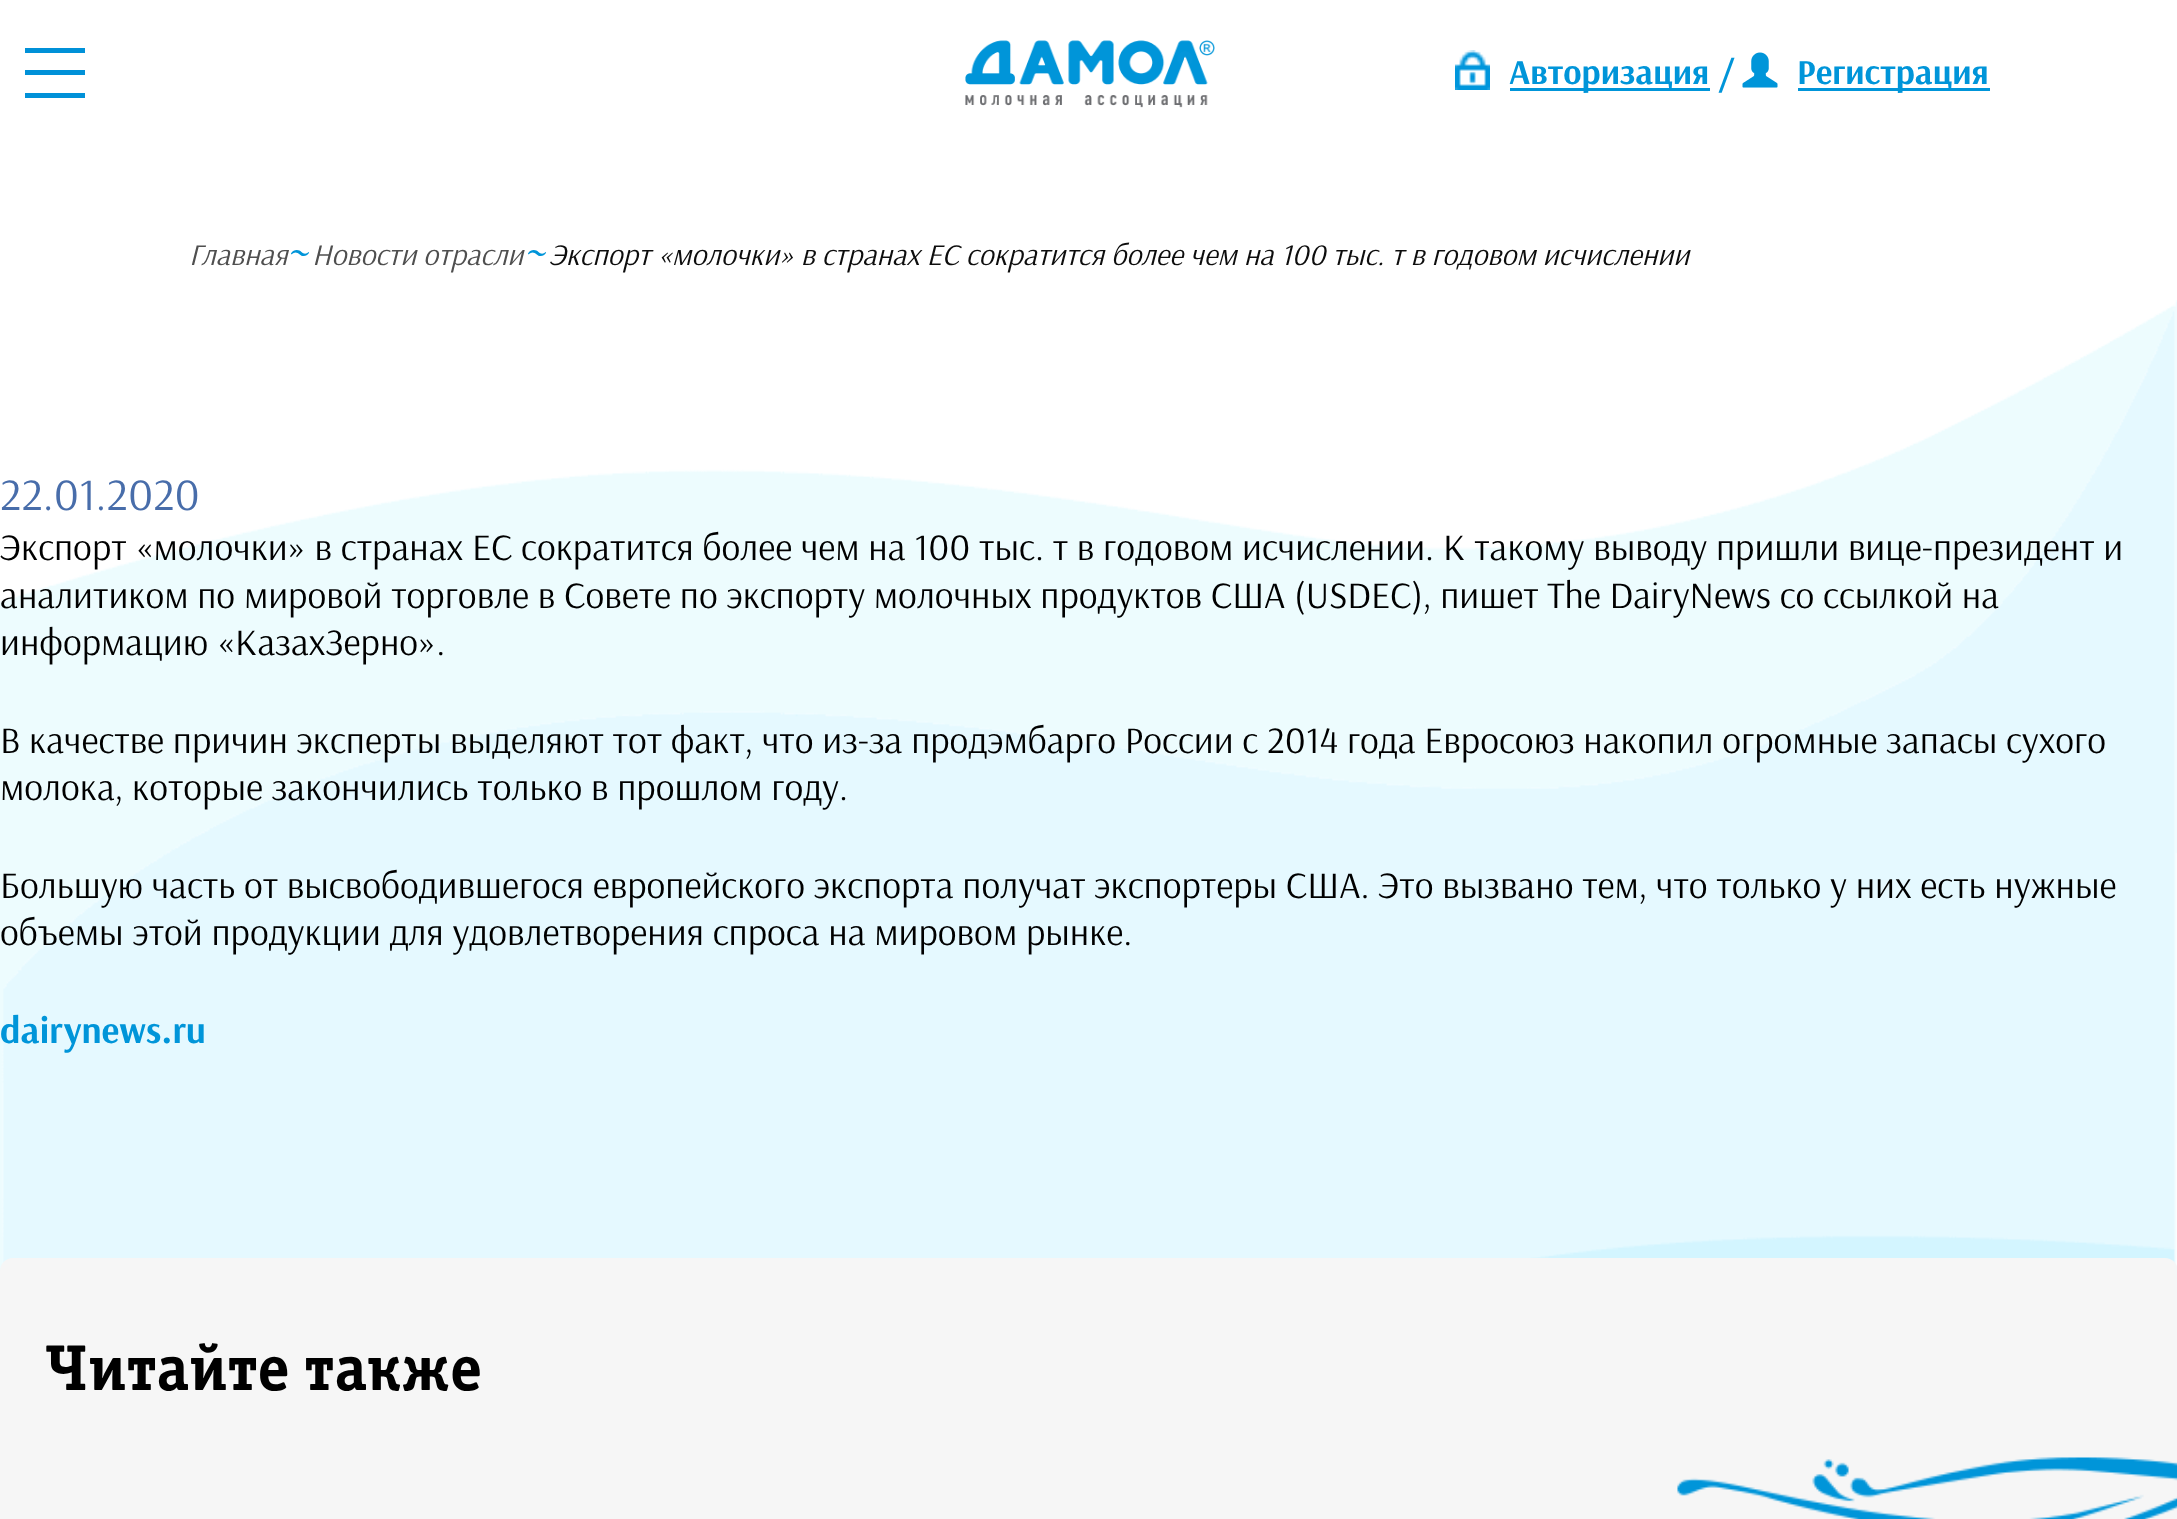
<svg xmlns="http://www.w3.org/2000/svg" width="2177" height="1519">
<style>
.a{font:bold 35px Arsenal;fill:#0095d9}
.b{font:italic 30px Arsenal;fill:#4f4f4f}
.c{font:italic 35px Arsenal;fill:#0095d9}
.d{font:italic 30px Arsenal;fill:#0d0d0d}
.e{font:45px Arsenal;fill:#486daa}
.f{font:37.5px Arsenal;fill:#000}
.g{font:bold 37.5px Arsenal;fill:#0095d9}
.h{font:bold 65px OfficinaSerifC;fill:#000}
</style>
<rect width="100%" height="100%" fill="#fff"/>
<image href="1.png" x="0" y="300" width="2177" height="971"/>
<path fill="#0091d8" d="M25 48h60v5H25z"/>
<path fill="#0091d8" d="M25 70h60v5H25z"/>
<path fill="#0091d8" d="M25 93h60v5H25z"/>
<image href="2.png" x="965" y="40" width="250" height="68"/>
<image href="3.png" x="1455" y="50" width="35" height="40"/>
<path fill="#0095d9" d="M1510 88h200v3H1510z"/>
<image href="4.png" x="1742" y="52" width="36" height="36"/>
<path fill="#0095d9" d="M1798 88h192v3H1798z"/>
<rect fill="#f6f6f6" y="1258" width="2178" height="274" rx="13"/>
<image href="5.png" x="1677" y="1457" width="500" height="62"/>
<text class="a" x="1509" y="84">Авторизация /</text>
<text class="a" x="1797" y="84">Регистрация</text>
<text class="b" x="189" y="265">Главная</text>
<text class="c" x="287" y="265">~</text>
<text class="b" x="312" y="265">Новости отрасли</text>
<text class="c" x="524" y="265">~</text>
<text class="d" x="549" y="265">Экспорт «молочки» в странах ЕС сократится более чем на 100 тыс. т в годовом исчислении</text>
<text class="e" x="0" y="510">22.01.2020</text>
<text class="f" x="0" y="560">Экспорт «молочки» в странах ЕС сократится более чем на 100 тыс. т в годовом исчислении. К такому выводу пришли вице-президент и</text>
<text class="f" x="0" y="608">аналитиком по мировой торговле в Совете по экспорту молочных продуктов США (USDEC), пишет The DairyNews со ссылкой на</text>
<text class="f" x="0" y="655">информацию «КазахЗерно».</text>
<text class="f" x="0" y="753">В качестве причин эксперты выделяют тот факт, что из-за продэмбарго России с 2014 года Евросоюз накопил огромные запасы сухого</text>
<text class="f" x="0" y="800">молока, которые закончились только в прошлом году.</text>
<text class="f" x="0" y="898">Большую часть от высвободившегося европейского экспорта получат экспортеры США. Это вызвано тем, что только у них есть нужные</text>
<text class="f" x="0" y="945">объемы этой продукции для удовлетворения спроса на мировом рынке.</text>
<text class="g" x="0" y="1043">dairynews.ru</text>
<text class="h" x="45" y="1390">Читайте также</text>
</svg>
